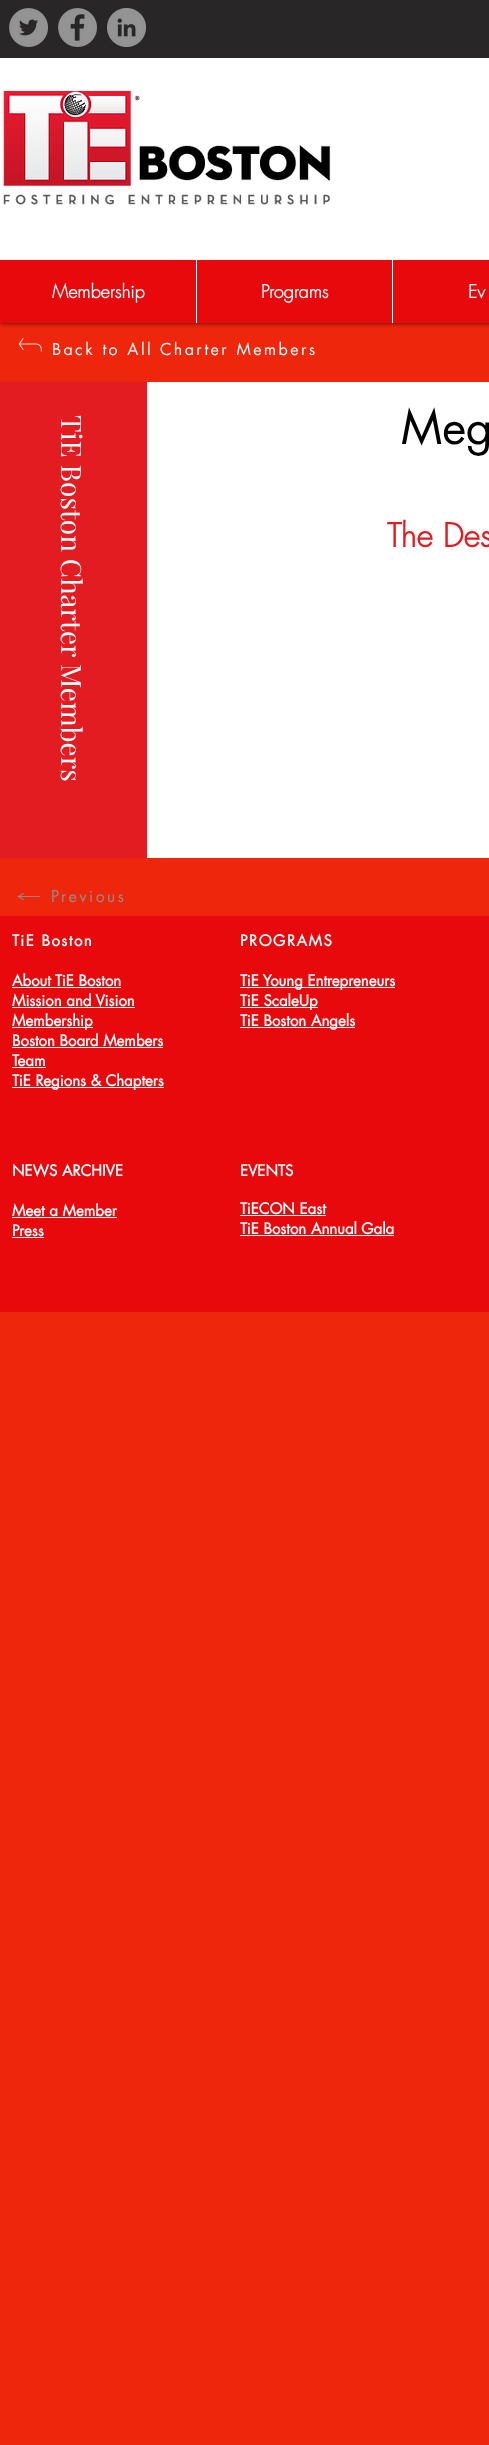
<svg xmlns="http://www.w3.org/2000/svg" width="489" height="2445">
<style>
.a{font:bold 18px futura;fill:#fff}
.b{font:16px futura;letter-spacing:2.4px;fill:#fff}
.c{font:28px Playfair Display;fill:#fff}
.d{font:46px futura;fill:#000}
.e{font:bold 32px futura;fill:#e21c21}
.f{font:16px futura;letter-spacing:2.4px;fill:#8f8f8f}
.g{font:bold 15px 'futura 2';letter-spacing:1.5px;fill:#fff}
.h{font:bold 15px 'futura 2';fill:#fff}
</style>
<rect width="100%" height="100%" fill="#ed260c"/>
<path fill="#000000b3" filter="blur(2.5px)" d="M0 0h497v323H0z"/>
<path fill="#fff" d="M0 58h489v202H0z"/>
<path fill="#282626" d="M0 0h489v58H0z"/>
<image href="1.png" x="9" y="8" width="39" height="39"/>
<image href="2.png" x="58" y="8" width="39" height="39"/>
<image href="3.png" x="107" y="8" width="39" height="39"/>
<image href="4.png" x="3" y="91" width="328" height="114"/>
<path fill="#e8090d" d="M0 260h489v63H0z"/>
<path fill="#fff" d="M196 260h1v63H196z"/>
<path fill="#fff" d="M392 260h1v63H392z"/>
<image href="5.png" x="18" y="338" width="24" height="14"/>
<path fill="#e21c21" d="M0 382h147v476H0z"/>
<path fill="#fff" d="M147 382h342v476H147z"/>
<image href="6.png" x="17" y="893" width="23" height="7"/>
<path fill="#e8090d" d="M0 916h489v396H0z"/>
<path fill="#fff" d="M12 987h109v1H12z"/>
<path fill="#fff" d="M12 1007h123v1H12z"/>
<path fill="#fff" d="M12 1027h81v1H12z"/>
<path fill="#fff" d="M12 1047h151v1H12z"/>
<path fill="#fff" d="M12 1067h34v1H12z"/>
<path fill="#fff" d="M12 1087h152v1H12z"/>
<path fill="#fff" d="M240 987h155v1H240z"/>
<path fill="#fff" d="M240 1007h78v1H240z"/>
<path fill="#fff" d="M240 1027h115v1H240z"/>
<path fill="#fff" d="M12 1217h105v1H12z"/>
<path fill="#fff" d="M12 1237h32v1H12z"/>
<path fill="#fff" d="M240 1215h86v1H240z"/>
<path fill="#fff" d="M240 1235h154v1H240z"/>
<text class="a" x="52" y="298">Membership</text>
<text class="a" x="261" y="298">Programs</text>
<text class="a" x="468" y="298">Ev</text>
<text class="b" x="52" y="355">Back to All Charter Members</text>
<text class="c" x="61" y="415" transform="rotate(90 61 415)">TiE Boston Charter Members</text>
<text class="d" x="401" y="444">Meg</text>
<text class="e" x="387" y="547">The Des</text>
<text class="f" x="51" y="902">Previous</text>
<text class="g" x="12" y="946">TiE Boston</text>
<text class="h" x="12" y="986">About TiE Boston</text>
<text class="h" x="12" y="1006">Mission and Vision</text>
<text class="h" x="12" y="1026">Membership</text>
<text class="h" x="12" y="1046">Boston Board Members</text>
<text class="h" x="12" y="1066">Team</text>
<text class="h" x="12" y="1086">TiE Regions &amp; Chapters</text>
<text class="g" x="240" y="946">PROGRAMS</text>
<text class="h" x="240" y="986">TiE Young Entrepreneurs</text>
<text class="h" x="240" y="1006">TiE ScaleUp</text>
<text class="h" x="240" y="1026">TiE Boston Angels</text>
<text class="h" x="12" y="1176">NEWS ARCHIVE</text>
<text class="h" x="12" y="1216">Meet a Member</text>
<text class="h" x="12" y="1236">Press</text>
<text class="h" x="240" y="1176">EVENTS</text>
<text class="h" x="240" y="1214">TiECON East</text>
<text class="h" x="240" y="1234">TiE Boston Annual Gala</text>
</svg>
